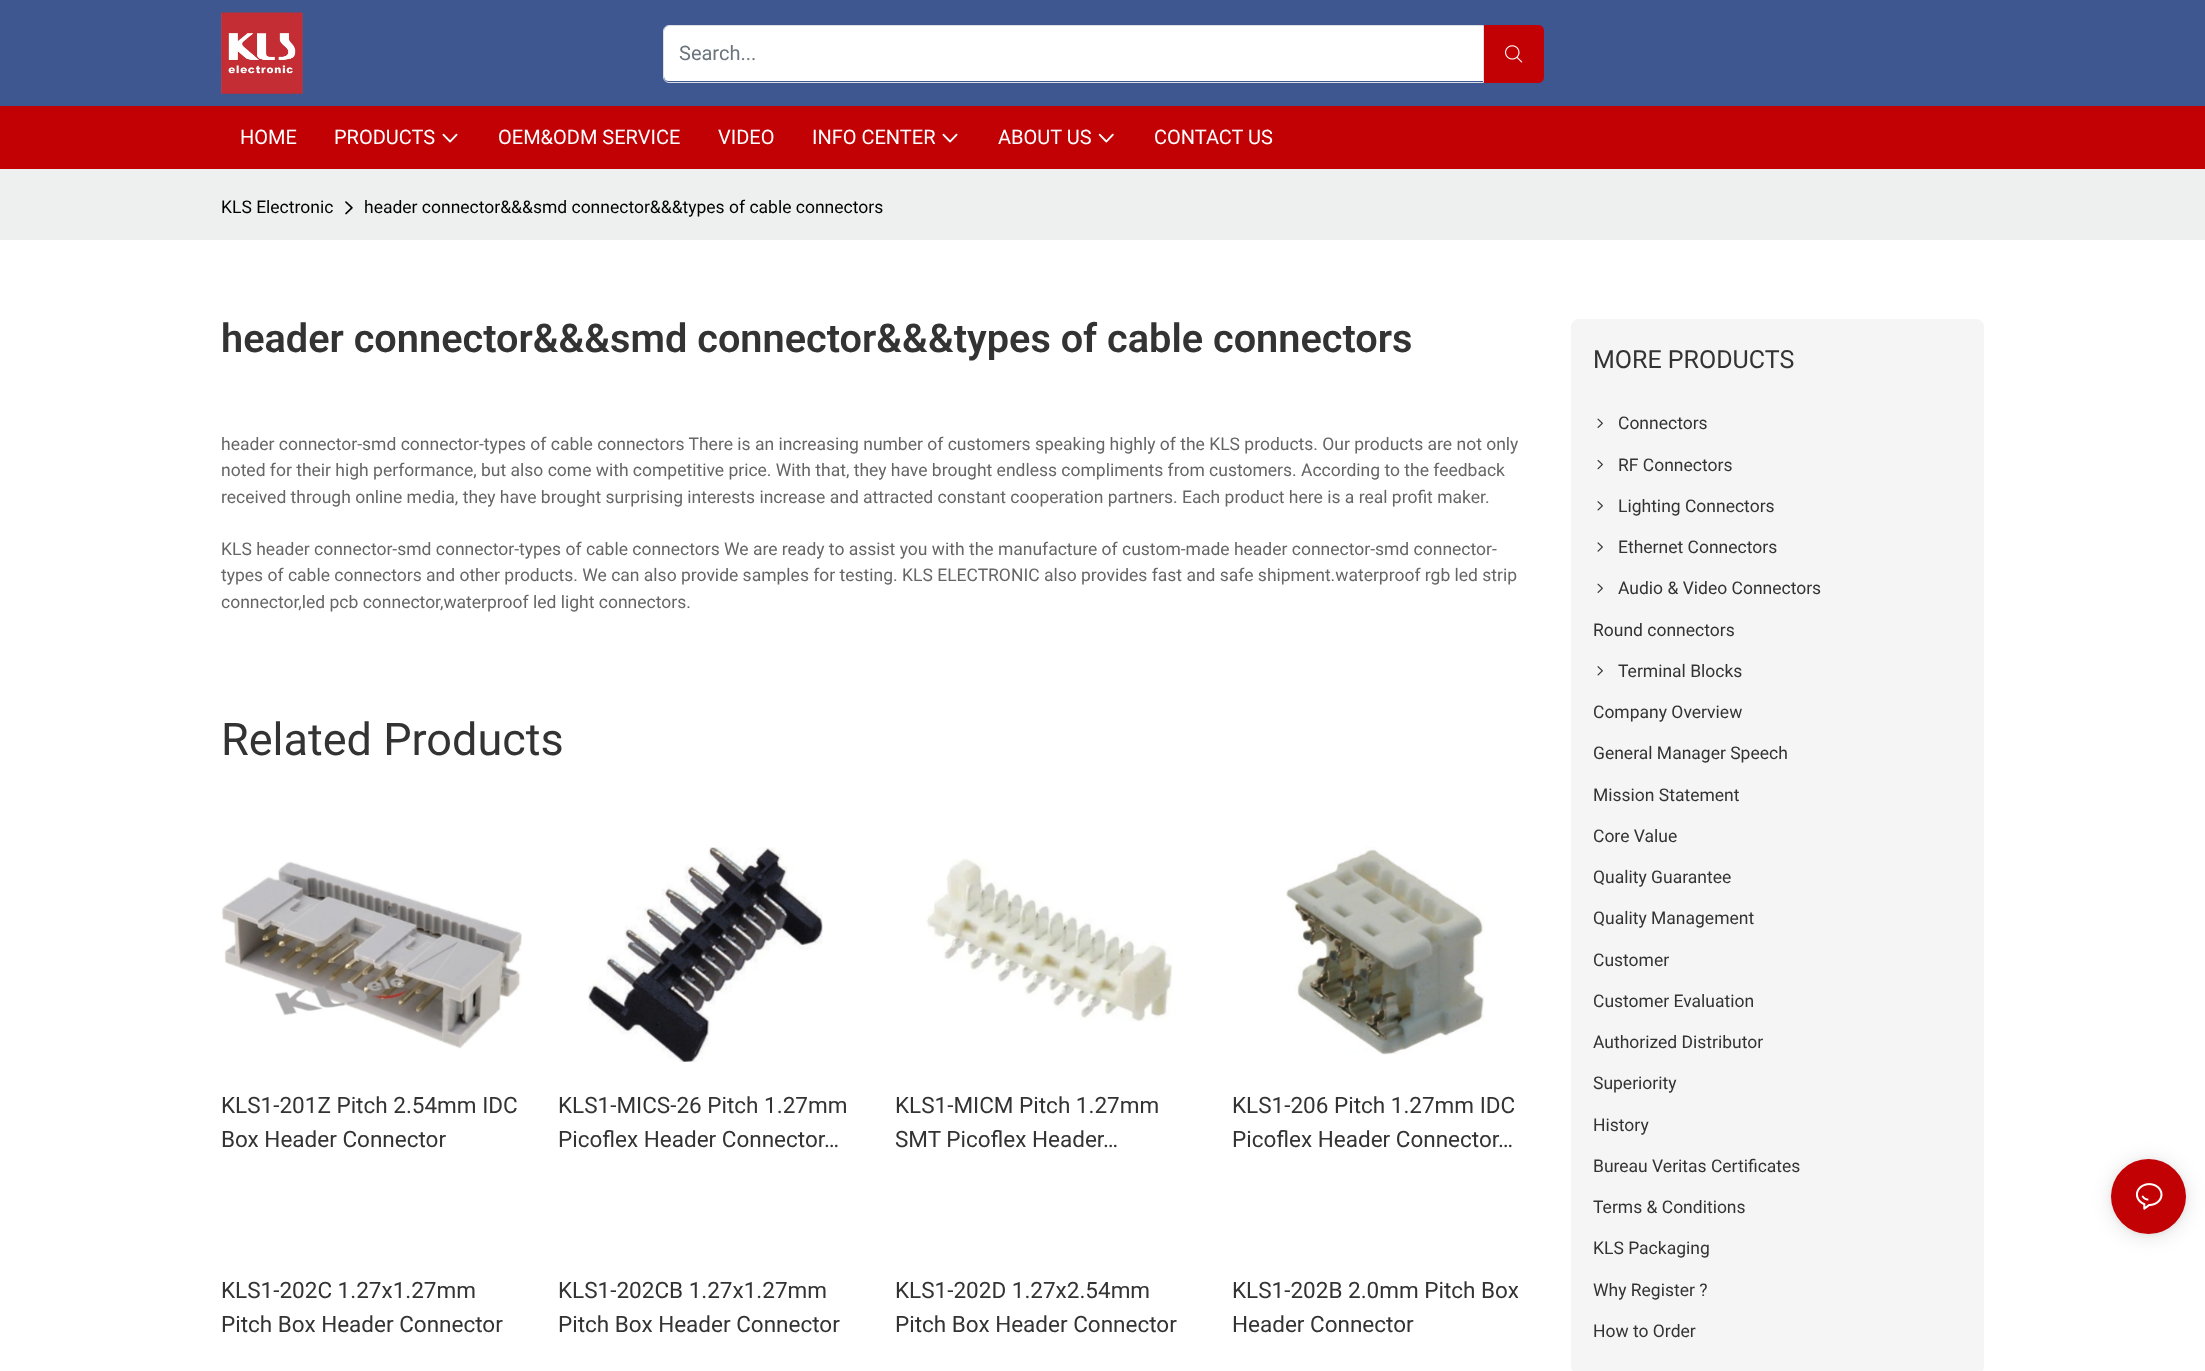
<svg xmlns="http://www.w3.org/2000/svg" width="2205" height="1371">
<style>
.a{font:20px Roboto;fill:#6c757d}
.b{font:20px Roboto;fill:#fff}
.c{font:17.5px Roboto;fill:#000}
.d{font:600 39.7px Roboto;fill:#333}
.e{font:17.5px Roboto;fill:#666}
.f{font:45px Roboto;fill:#333}
.g{font:22.5px Roboto;fill:#333}
.h{font:25px Roboto;fill:#333}
.i{font:17.5px Roboto;fill:#333}
</style>
<rect width="100%" height="100%" fill="#fff"/>
<path fill="#3e5790" d="M0 0h2205v106H0z"/>
<image href="1.png" x="221" y="12" width="82" height="82"/>
<path fill="#fff" d="M669 26h814v55h-814c-3 0-5-2-5-5v-45c0-3 2-5 5-5z"/>
<path fill="none" stroke="#dcdfe6" d="M669 25.5h814.5v57h-814.5c-3 0-5.5-2.5-5.5-5.5v-46c0-3 2.5-5.5 5.5-5.5z"/>
<path fill="#c20104" d="M1484 25h54c3.5 0 6 2.5 6 6v46c0 3.5-2.5 6-6 6h-54z"/>
<image href="2.png" x="1505" y="45" width="18" height="18"/>
<path fill="#c20104" d="M0 106h2205v63H0z"/>
<image href="3.png" x="442" y="133" width="16" height="10"/>
<image href="3.png" x="942" y="133" width="16" height="10"/>
<image href="4.png" x="1098" y="133" width="16" height="10"/>
<path fill="#eeefef" d="M0 169h2205v71H0z"/>
<image href="5.png" x="345" y="201" width="8" height="14"/>
<image href="6.png" x="221" y="861" width="302" height="188"/>
<image href="7.png" x="588" y="847" width="235" height="215"/>
<image href="8.png" x="926" y="858" width="247" height="164"/>
<image href="9.png" x="1286" y="846" width="199" height="209"/>
<rect fill="#f5f5f5" x="1571" y="319" width="413" height="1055" rx="8"/>
<image href="10.png" x="1597" y="418" width="6" height="10"/>
<image href="11.png" x="1597" y="459" width="6" height="11"/>
<image href="12.png" x="1597" y="501" width="6" height="10"/>
<image href="13.png" x="1597" y="542" width="6" height="10"/>
<image href="10.png" x="1597" y="583" width="6" height="10"/>
<image href="12.png" x="1597" y="666" width="6" height="10"/>
<rect fill="#0000001f" filter="blur(10px)" x="2111" y="1161" width="75" height="75" rx="37.5"/>
<rect fill="#0000000f" filter="blur(2.5px)" x="2111" y="1160" width="75" height="75" rx="37.5"/>
<circle fill="#c20104" cx="2148.5" cy="1196.5" r="37.5"/>
<image href="14.png" x="2135" y="1183" width="28" height="27"/>
<text class="a" x="679" y="60">Search...</text>
<text class="b" x="240" y="144">HOME</text>
<text class="b" x="334" y="144">PRODUCTS</text>
<text class="b" x="498" y="144">OEM&amp;ODM SERVICE</text>
<text class="b" x="718" y="144">VIDEO</text>
<text class="b" x="812" y="144">INFO CENTER</text>
<text class="b" x="998" y="144">ABOUT US</text>
<text class="b" x="1154" y="144">CONTACT US</text>
<text class="c" x="221" y="213">KLS Electronic</text>
<text class="c" x="364" y="213">header connector&amp;&amp;&amp;smd connector&amp;&amp;&amp;types of cable connectors</text>
<text class="d" x="221" y="352">header connector&amp;&amp;&amp;smd connector&amp;&amp;&amp;types of cable connectors</text>
<text class="e" x="221" y="450">header connector-smd connector-types of cable connectors There is an increasing number of customers speaking highly of the KLS products. Our products are not only</text>
<text class="e" x="221" y="476">noted for their high performance, but also come with competitive price. With that, they have brought endless compliments from customers. According to the feedback</text>
<text class="e" x="221" y="503">received through online media, they have brought surprising interests increase and attracted constant cooperation partners. Each product here is a real profit maker.</text>
<text class="e" x="221" y="555">KLS header connector-smd connector-types of cable connectors We are ready to assist you with the manufacture of custom-made header connector-smd connector-</text>
<text class="e" x="221" y="581">types of cable connectors and other products. We can also provide samples for testing. KLS ELECTRONIC also provides fast and safe shipment.waterproof rgb led strip</text>
<text class="e" x="221" y="608">connector,led pcb connector,waterproof led light connectors.</text>
<text class="f" x="221" y="755">Related Products</text>
<text class="g" x="221" y="1113">KLS1-201Z Pitch 2.54mm IDC</text>
<text class="g" x="221" y="1147">Box Header Connector</text>
<text class="g" x="558" y="1113">KLS1-MICS-26 Pitch 1.27mm</text>
<text class="g" x="558" y="1147">Picoflex Header Connector…</text>
<text class="g" x="895" y="1113">KLS1-MICM Pitch 1.27mm</text>
<text class="g" x="895" y="1147">SMT Picoflex Header…</text>
<text class="g" x="1232" y="1113">KLS1-206 Pitch 1.27mm IDC</text>
<text class="g" x="1232" y="1147">Picoflex Header Connector…</text>
<text class="g" x="221" y="1298">KLS1-202C 1.27x1.27mm</text>
<text class="g" x="221" y="1332">Pitch Box Header Connector</text>
<text class="g" x="558" y="1298">KLS1-202CB 1.27x1.27mm</text>
<text class="g" x="558" y="1332">Pitch Box Header Connector</text>
<text class="g" x="895" y="1298">KLS1-202D 1.27x2.54mm</text>
<text class="g" x="895" y="1332">Pitch Box Header Connector</text>
<text class="g" x="1232" y="1298">KLS1-202B 2.0mm Pitch Box</text>
<text class="g" x="1232" y="1332">Header Connector</text>
<text class="h" x="1593" y="368">MORE PRODUCTS</text>
<text class="i" x="1618" y="429">Connectors</text>
<text class="i" x="1618" y="471">RF Connectors</text>
<text class="i" x="1618" y="512">Lighting Connectors</text>
<text class="i" x="1618" y="553">Ethernet Connectors</text>
<text class="i" x="1618" y="594">Audio &amp; Video Connectors</text>
<text class="i" x="1593" y="636">Round connectors</text>
<text class="i" x="1618" y="677">Terminal Blocks</text>
<text class="i" x="1593" y="718">Company Overview</text>
<text class="i" x="1593" y="759">General Manager Speech</text>
<text class="i" x="1593" y="801">Mission Statement</text>
<text class="i" x="1593" y="842">Core Value</text>
<text class="i" x="1593" y="883">Quality Guarantee</text>
<text class="i" x="1593" y="924">Quality Management</text>
<text class="i" x="1593" y="966">Customer</text>
<text class="i" x="1593" y="1007">Customer Evaluation</text>
<text class="i" x="1593" y="1048">Authorized Distributor</text>
<text class="i" x="1593" y="1089">Superiority</text>
<text class="i" x="1593" y="1131">History</text>
<text class="i" x="1593" y="1172">Bureau Veritas Certificates</text>
<text class="i" x="1593" y="1213">Terms &amp; Conditions</text>
<text class="i" x="1593" y="1254">KLS Packaging</text>
<text class="i" x="1593" y="1296">Why Register ?</text>
<text class="i" x="1593" y="1337">How to Order</text>
</svg>
